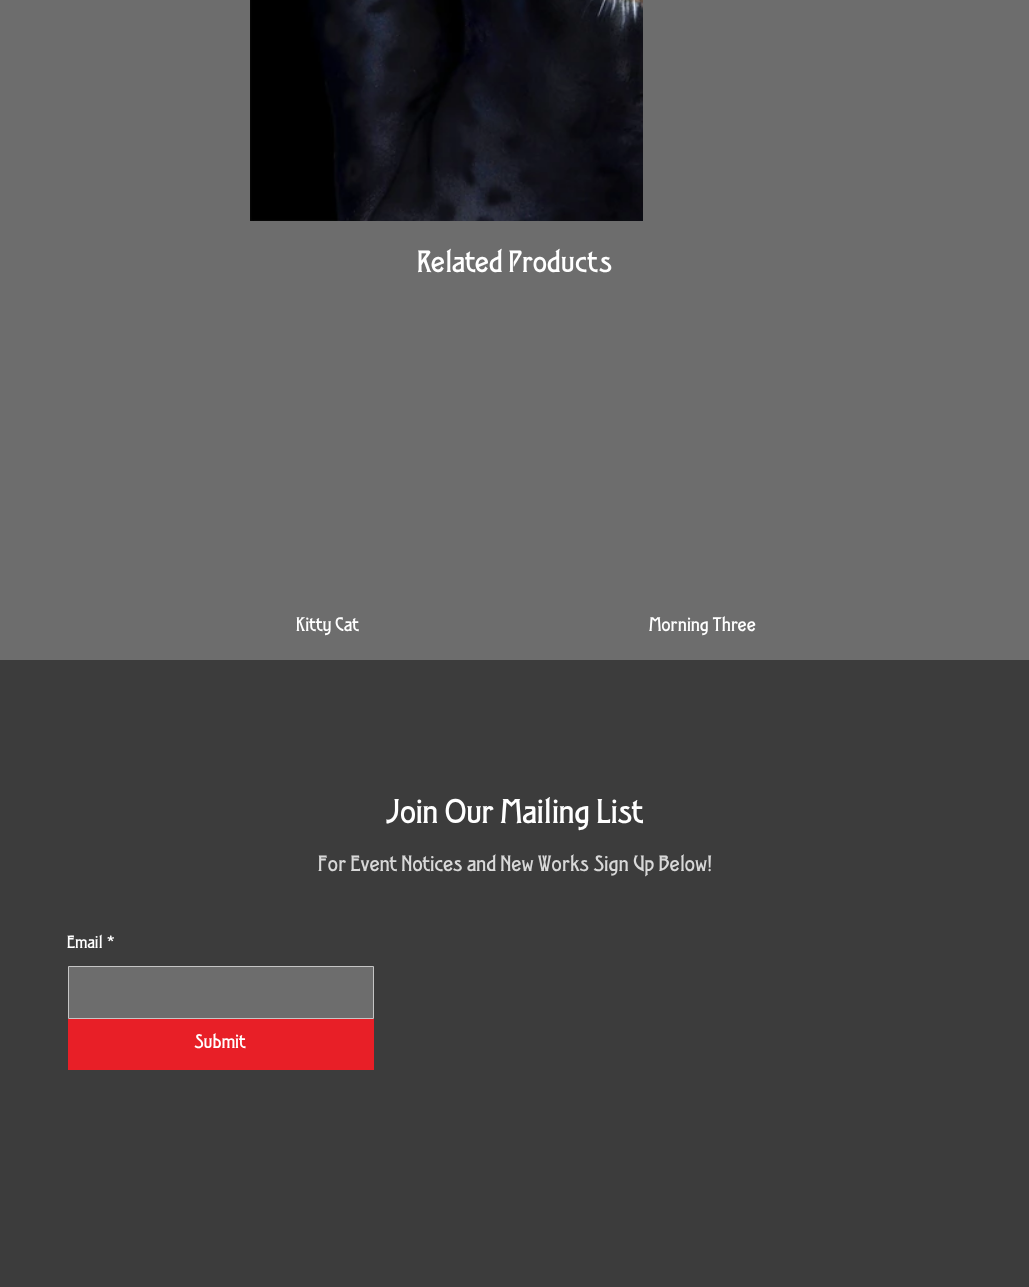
<svg xmlns="http://www.w3.org/2000/svg" width="1029" height="1287">
<style>
.a{font:31.25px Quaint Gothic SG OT;fill:#fff}
.b{font:20px Quaint Gothic SG OT;fill:#fff}
.c{font:35px Quaint Gothic SG OT;fill:#fff}
.d{font:22.5px Quaint Gothic SG OT;fill:#d8d8d8}
.e{font:18px Quaint Gothic SG OT;fill:#fff}
</style>
<rect width="100%" height="100%" fill="#6d6d6d"/>
<image href="1.png" x="250" y="0" width="393" height="221"/>
<path fill="#3c3c3c" d="M0 660h1029v627H0z"/>
<path fill="#6d6d6d" stroke="#c5c5c5" d="M68.5 966.5h305v52H68.5z"/>
<path fill="#e81f27" d="M68 1019h306v51H68z"/>
<text class="a" x="417" y="272">Related Products</text>
<text class="b" x="296" y="631">Kitty Cat</text>
<text class="b" x="649" y="631">Morning Three</text>
<text class="c" x="386" y="823">Join Our Mailing List</text>
<text class="d" x="318" y="871">For Event Notices and New Works Sign Up Below!</text>
<text class="e" x="67" y="948">Email</text>
<text class="e" x="107" y="948">*</text>
<text class="b" x="194" y="1048">Submit</text>
</svg>
